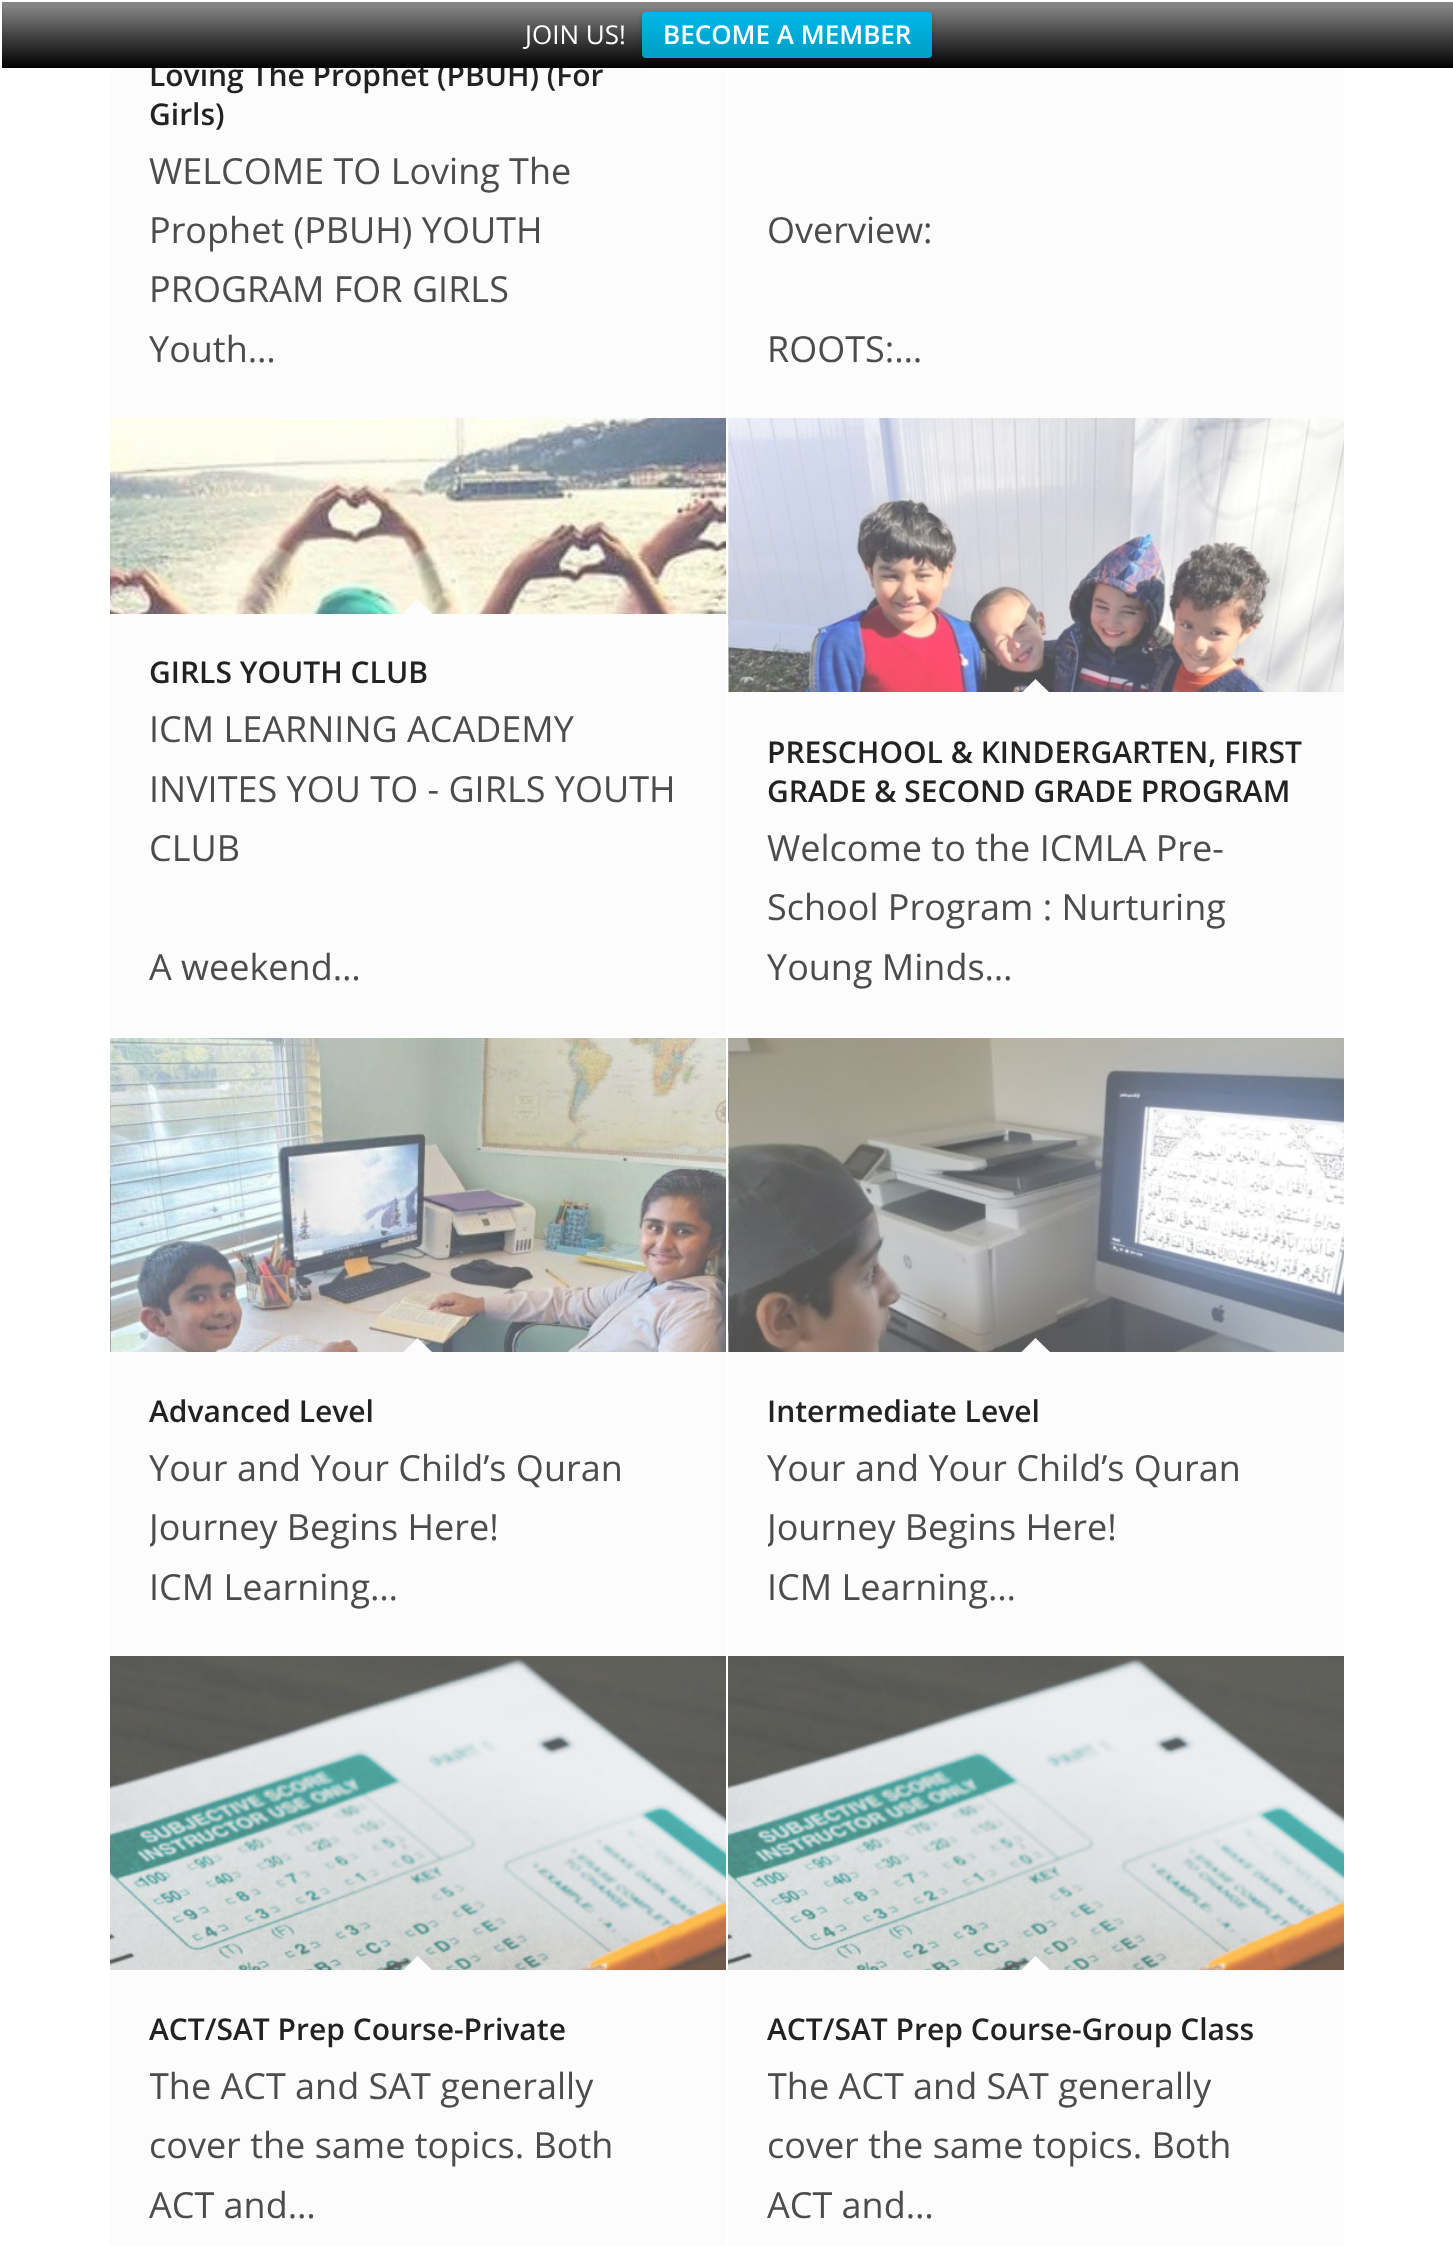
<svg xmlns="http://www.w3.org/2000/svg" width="1453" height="2246">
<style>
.a{font:600 30px Open Sans;fill:#222}
.b{font:600 26px Open Sans;fill:#fff}
.c{font:26px Open Sans;fill:#fff}
.d{font:36px Open Sans;fill:#4d4b4d}
</style>
<defs>
<linearGradient id="g1" gradientUnits="userSpaceOnUse" x1="728" y1="2" x2="728" y2="68"><stop offset="0" stop-color="#888"/><stop offset="1" stop-color="#000"/></linearGradient>
<linearGradient id="g2" gradientUnits="userSpaceOnUse" x1="729" y1="4" x2="729" y2="68"><stop offset="0" stop-color="#888"/><stop offset="1" stop-color="#000"/></linearGradient>
<linearGradient id="g3" gradientUnits="userSpaceOnUse" x1="787" y1="12" x2="787" y2="58"><stop offset="0" stop-color="#00b7ea"/><stop offset="1" stop-color="#009ec3"/></linearGradient>
<clipPath id="clip1"><path d="M150 1430h536v188H150z"/></clipPath>
<clipPath id="clip2"><path d="M768 1430h536v188H768z"/></clipPath>
<clipPath id="clip3"><path d="M150 2048h536v188H150z"/></clipPath>
<clipPath id="clip4"><path d="M768 2048h536v188H768z"/></clipPath>
</defs>
<rect width="100%" height="100%" fill="#fff"/>
<path fill="#fcfcfc" d="M110 68h616v350H110z"/>
<path fill="#fcfcfc" d="M728 68h616v350H728z"/>
<image href="1.png" x="110" y="418" width="616" height="196"/>
<path fill="#fcfcfc" d="M110 614h616v422H110z"/>
<path fill="#fcfcfc" d="M417.5 599l14.5 14l-14.5 14.5l-14-14.5z"/>
<image href="2.png" x="728" y="418" width="616" height="274"/>
<path fill="#fcfcfc" d="M728 692h616v344H728z"/>
<path fill="#fcfcfc" d="M1035.5 679l14.5 14l-14.5 14l-14-14z"/>
<image href="3.png" x="110" y="1038" width="616" height="314"/>
<path fill="#fcfcfc" d="M110 1352h616v304H110z"/>
<path fill="#fcfcfc" d="M417.5 1338l14.5 14l-14.5 14l-14-14z"/>
<image href="4.png" x="728" y="1038" width="616" height="314"/>
<path fill="#fcfcfc" d="M728 1352h616v304H728z"/>
<path fill="#fcfcfc" d="M1035.5 1338l14.5 14l-14.5 14l-14-14z"/>
<image href="5.png" x="110" y="1656" width="616" height="314"/>
<path fill="#fcfcfc" d="M110 1970h616v276H110z"/>
<path fill="#fcfcfc" d="M417.5 1956l14.5 14l-14.5 14l-14-14z"/>
<image href="5.png" x="728" y="1656" width="616" height="314"/>
<path fill="#fcfcfc" d="M728 1970h616v276H728z"/>
<path fill="#fcfcfc" d="M1035.5 1956l14.5 14l-14.5 14l-14-14z"/>
<text class="a" x="149" y="86">Loving The Prophet (PBUH) (For</text>
<path fill="url(#g1)" d="M2 2h1451v66H2z"/>
<path fill="url(#g2)" d="M4 4h1449v28H4z"/>
<rect fill="#00000033" filter="blur(2px)" x="642" y="14" width="290" height="46" rx="4"/>
<rect fill="url(#g3)" x="642" y="12" width="290" height="46" rx="4"/>
<text class="b" x="663" y="44">BECOME A MEMBER</text>
<text class="c" x="525" y="44">JOIN US!</text>
<text class="a" x="149" y="125">Girls)</text>
<text class="d" x="149" y="184">WELCOME TO Loving The</text>
<text class="d" x="149" y="243">Prophet (PBUH) YOUTH</text>
<text class="d" x="149" y="302">PROGRAM FOR GIRLS</text>
<text class="d" x="149" y="362">Youth…</text>
<text class="d" x="767" y="243">Overview:</text>
<text class="d" x="767" y="362">ROOTS:…</text>
<text class="a" x="149" y="683">GIRLS YOUTH CLUB</text>
<text class="d" x="149" y="742">ICM LEARNING ACADEMY</text>
<text class="d" x="149" y="802">INVITES YOU TO - GIRLS YOUTH</text>
<text class="d" x="149" y="861">CLUB</text>
<text class="d" x="149" y="980">A weekend…</text>
<text class="a" x="767" y="763">PRESCHOOL &amp; KINDERGARTEN, FIRST</text>
<text class="a" x="767" y="802">GRADE &amp; SECOND GRADE PROGRAM</text>
<text class="d" x="767" y="861">Welcome to the ICMLA Pre-</text>
<text class="d" x="767" y="920">School Program : Nurturing</text>
<text class="d" x="767" y="980">Young Minds…</text>
<text class="a" x="149" y="1422">Advanced Level</text>
<text class="d" x="149" y="1481">Your and Your Child’s Quran</text>
<g clip-path="url(#clip1)">
<text class="d" x="149" y="1540">Journey Begins Here!</text>
</g>
<text class="d" x="149" y="1600">ICM Learning…</text>
<text class="a" x="767" y="1422">Intermediate Level</text>
<text class="d" x="767" y="1481">Your and Your Child’s Quran</text>
<g clip-path="url(#clip2)">
<text class="d" x="767" y="1540">Journey Begins Here!</text>
</g>
<text class="d" x="767" y="1600">ICM Learning…</text>
<text class="a" x="149" y="2040">ACT/SAT Prep Course-Private</text>
<g clip-path="url(#clip3)">
<text class="d" x="149" y="2099">The ACT and SAT generally</text>
</g>
<text class="d" x="149" y="2158">cover the same topics. Both</text>
<text class="d" x="149" y="2218">ACT and…</text>
<text class="a" x="767" y="2040">ACT/SAT Prep Course-Group Class</text>
<g clip-path="url(#clip4)">
<text class="d" x="767" y="2099">The ACT and SAT generally</text>
</g>
<text class="d" x="767" y="2158">cover the same topics. Both</text>
<text class="d" x="767" y="2218">ACT and…</text>
</svg>
